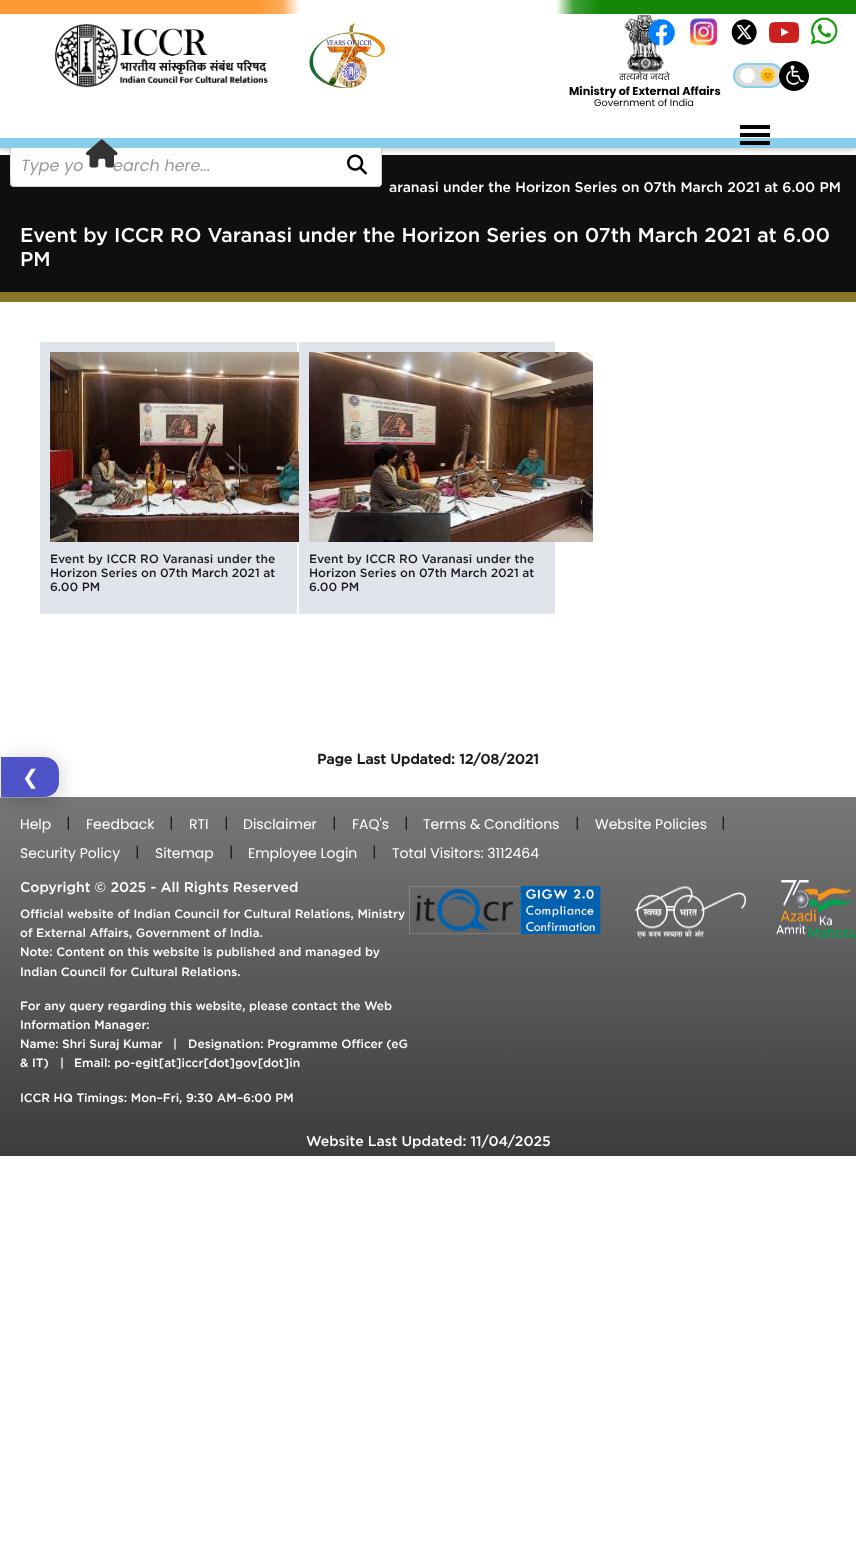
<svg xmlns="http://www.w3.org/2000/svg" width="856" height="1554">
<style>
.a{font:8.5px Poppins;fill:#000}
.b{font:bold 11.25px Poppins;fill:#000}
.c{font:9.75px Poppins;fill:#000}
.d{font:14px Noto Color Emoji;fill:#ffa500}
.e{font:italic 16px Poppins;fill:#999}
.f{font:20px DejaVu Sans;fill:#fff}
.g{font:500 14px Gotham;fill:#fff}
.h{font:500 20px Gotham;fill:#fff}
.i{font:500 12px Gotham;fill:#1d1d1d}
.j{font:bold 14px Gotham;fill:#1d1d1d}
.k{font:14px Poppins;fill:#fff}
.l{font:500 14px Gotham;fill:#1d1d1d}
.m{font:500 12px Gotham;fill:#fff}
</style>
<defs>
<clipPath id="clip1"><path d="M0 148h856v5H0z"/></clipPath>
<linearGradient id="g1" gradientUnits="userSpaceOnUse" x1="0" y1="7" x2="856" y2="7"><stop offset="0.3" stop-color="#f93"/><stop offset="0.33" stop-color="#ffad5c"/><stop offset="0.35" stop-color="#fff"/><stop offset="0.65" stop-color="#fff"/><stop offset="0.67" stop-color="#42a039"/><stop offset="0.7" stop-color="#138808"/></linearGradient>
<linearGradient id="g2" gradientUnits="userSpaceOnUse" x1="428" y1="797" x2="428" y2="1156"><stop offset="0" stop-color="#787878"/><stop offset="1" stop-color="#3c3c3c"/></linearGradient>
</defs>
<rect width="100%" height="100%" fill="#fff"/>
<path fill="#0f0f0f" d="M0 155h856v137H0z"/>
<g clip-path="url(#clip1)">
<path fill="#00000033" filter="blur(2.5px)" d="M0 2h856v148H0z"/>
</g>
<path fill="url(#g1)" d="M0 0h856v14H0z"/>
<image href="1.png" x="54" y="23" width="214" height="65"/>
<image href="2.png" x="309" y="23" width="76" height="65"/>
<image href="8.png" x="624" y="14" width="40" height="58"/>
<image href="3.png" x="648" y="19" width="27" height="27"/>
<image href="4.png" x="690" y="18" width="28" height="28"/>
<image href="5.png" x="731" y="19" width="26" height="26"/>
<image href="6.png" x="769" y="22" width="30" height="21"/>
<image href="7.png" x="810" y="17" width="28" height="28"/>
<rect fill="#ddd" stroke="#87ceeb" stroke-width="2" x="734" y="64" width="48" height="23" rx="11.5"/>
<circle fill="#fff" cx="747.5" cy="75.5" r="7.5"/>
<image href="9.png" x="779" y="61" width="30" height="30"/>
<path fill="#000" d="M740 125h30v4H740z"/>
<path fill="#000" d="M740 133h30v4H740z"/>
<path fill="#fff" d="M14 143h318v44h-318c-2 0-4-2-4-4v-36c0-2 2-4 4-4z"/>
<path fill="#ccc" d="M332 187l-1-1h-318l-1-1l-1 1l3 1z"/>
<path fill="#ccc" d="M10 147v36c0 1 0 2 1 3l1-1c-2-1-2-39 0-40l-1-1z"/>
<path fill="#fff" d="M332 144h46c2 0 4 2 4 4v35c0 2-2 4-4 4h-46z"/>
<path fill="#ccc" fill-rule="evenodd" d="M332 144h46c2 0 4 2 4 4v35c0 2-2 4-4 4h-46zm0 1h46c2 0 3 1 3 3v35c0 2-1 3-3 3h-46z"/>
<path fill="#87ceeb" d="M0 138h856v10H0z"/>
<path fill="#000" d="M740 141h30v4H740z"/>
<image href="10.png" x="347" y="154" width="20" height="21"/>
<path fill="url(#g2)" d="M0 797h856v359H0z"/>
<rect fill="#00000033" filter="blur(10px)" y="760" width="60" height="42" rx="16"/>
<path fill="#ffffff26" d="M0 756h44c9 0 16 7 16 16v10c0 9-7 16-16 16h-44z"/>
<path fill="none" stroke="#ffffff2e" d="M.5 756.5h43.5c8.5 0 15.5 7 15.5 15.5v10c0 8.5-7 15.5-15.5 15.5h-43.5z"/>
<path fill="#4e54c8" d="M1 757h43c8.5 0 15 6.5 15 15v10c0 8.5-6.5 15-15 15h-43z"/>
<path fill="#8c7728" d="M0 292h856v10H0z"/>
<path fill="#e1e5eb" d="M40 342h257v272H40z"/>
<image href="12.png" x="50" y="352" width="249" height="190"/>
<path fill="#e1e5eb" d="M299 342h256v272H299z"/>
<image href="13.png" x="309" y="352" width="284" height="190"/>
<image href="14.png" x="409" y="886" width="192" height="48"/>
<image href="15.png" x="635" y="886" width="111" height="52"/>
<image href="16.png" x="776" y="880" width="80" height="58"/>
<text class="a" x="619" y="80">सत्यमेव जयते</text>
<text class="b" x="569" y="95">Ministry of External Affairs</text>
<text class="c" x="594" y="106">Government of India</text>
<text class="d" x="759" y="80">🌞</text>
<text class="e" x="21" y="171">Type yo</text>
<text class="e" x="113" y="171">earch here...</text>
<image href="11.png" x="86" y="139" width="32" height="29"/>
<text class="f" x="22" y="784">❮</text>
<text class="g" x="389" y="192">aranasi under the Horizon Series on 07th March 2021 at 6.00 PM</text>
<text class="h" x="20" y="242">Event by ICCR RO Varanasi under the Horizon Series on 07th March 2021 at 6.00</text>
<text class="h" x="20" y="266">PM</text>
<text class="i" x="50" y="563">Event by ICCR RO Varanasi under the</text>
<text class="i" x="50" y="577">Horizon Series on 07th March 2021 at</text>
<text class="i" x="50" y="591">6.00 PM</text>
<text class="i" x="309" y="563">Event by ICCR RO Varanasi under the</text>
<text class="i" x="309" y="577">Horizon Series on 07th March 2021 at</text>
<text class="i" x="309" y="591">6.00 PM</text>
<text class="j" x="317" y="764">Page Last Updated: 12/08/2021</text>
<text class="k" x="20" y="829">Help</text>
<text class="l" x="66" y="828">|</text>
<text class="k" x="86" y="829">Feedback</text>
<text class="l" x="169" y="828">|</text>
<text class="k" x="189" y="829">RTI</text>
<text class="l" x="224" y="828">|</text>
<text class="k" x="243" y="829">Disclaimer</text>
<text class="l" x="332" y="828">|</text>
<text class="k" x="352" y="829">FAQ's</text>
<text class="l" x="404" y="828">|</text>
<text class="k" x="423" y="829">Terms &amp; Conditions</text>
<text class="l" x="575" y="828">|</text>
<text class="k" x="595" y="829">Website Policies</text>
<text class="l" x="721" y="828">|</text>
<text class="k" x="20" y="858">Security Policy</text>
<text class="l" x="135" y="857">|</text>
<text class="k" x="155" y="858">Sitemap</text>
<text class="l" x="229" y="857">|</text>
<text class="k" x="248" y="858">Employee Login</text>
<text class="l" x="372" y="857">|</text>
<text class="k" x="392" y="858">Total Visitors: 3112464</text>
<text class="g" x="20" y="892">Copyright © 2025 - All Rights Reserved</text>
<text class="m" x="20" y="918">Official website of Indian Council for Cultural Relations, Ministry</text>
<text class="m" x="20" y="937">of External Affairs, Government of India.</text>
<text class="m" x="20" y="956">Note: Content on this website is published and managed by</text>
<text class="m" x="20" y="976">Indian Council for Cultural Relations.</text>
<text class="m" x="20" y="1010">For any query regarding this website, please contact the Web</text>
<text class="m" x="20" y="1029">Information Manager:</text>
<text class="m" x="20" y="1048">Name: Shri Suraj Kumar</text>
<text class="m" x="173" y="1048">|</text>
<text class="m" x="188" y="1048">Designation: Programme Officer (eG</text>
<text class="m" x="20" y="1067">&amp; IT)</text>
<text class="m" x="60" y="1067">|</text>
<text class="m" x="74" y="1067">Email: po-egit[at]iccr[dot]gov[dot]in</text>
<text class="m" x="20" y="1102">ICCR HQ Timings: Mon–Fri, 9:30 AM–6:00 PM</text>
<text class="g" x="306" y="1146">Website Last Updated: 11/04/2025</text>
</svg>
